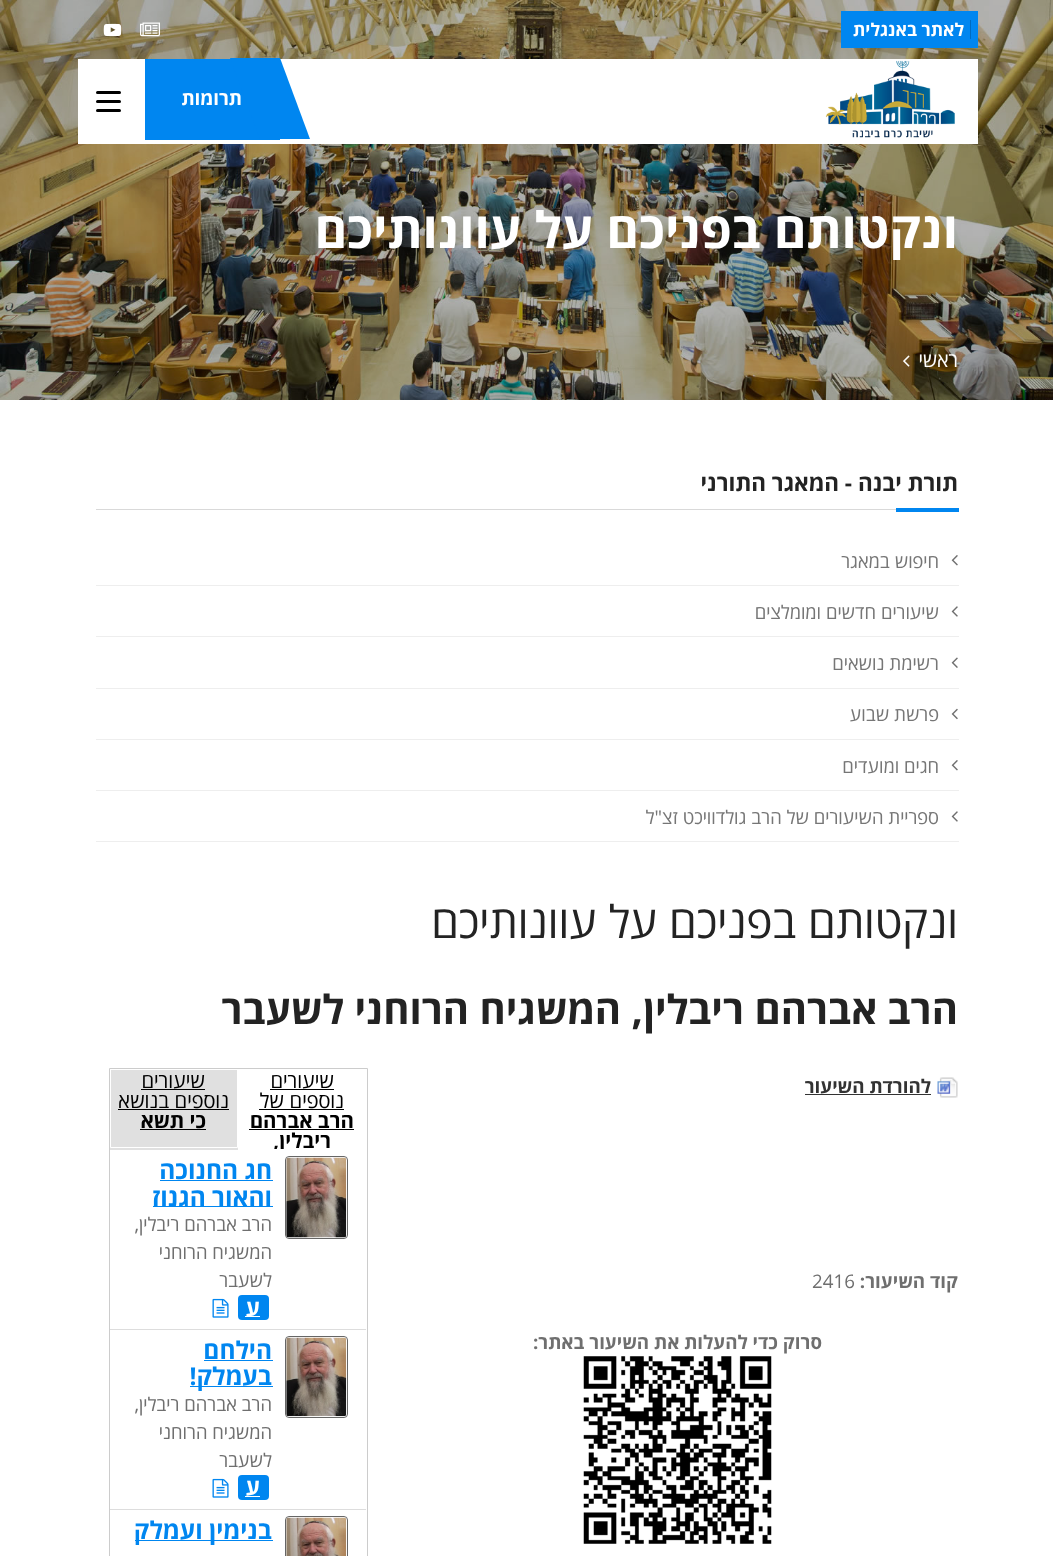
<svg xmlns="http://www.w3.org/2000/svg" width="1053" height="1556">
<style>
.a{font:bold 17.5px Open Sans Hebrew;direction:rtl;fill:#fff}
.b{font:bold 18.75px Open Sans Hebrew;direction:rtl;fill:#fff}
.c{font:bold 50px Open Sans Hebrew;direction:rtl;fill:#fff}
.d{font:20px Open Sans Hebrew;direction:rtl;fill:#fff}
.e{font:bold 22.5px Open Sans Hebrew;direction:rtl;fill:#232323}
.f{font:18.75px Open Sans Hebrew;direction:rtl;fill:#767676}
.g{font:45px Open Sans Hebrew;direction:rtl;fill:#232323}
.h{font:bold 40px Open Sans Hebrew;direction:rtl;fill:#232323}
.i{font:bold 18.75px Open Sans Hebrew;direction:rtl;fill:#333}
.j{font:bold 18.75px Open Sans Hebrew;direction:rtl;fill:#6f6f6f}
.k{font:18.75px Open Sans Hebrew;fill:#6f6f6f}
.l{font:20.5px Open Sans Hebrew;direction:rtl;fill:#000}
.m{font:bold 20.5px Open Sans Hebrew;direction:rtl;fill:#000}
.n{font:bold 24.5px Open Sans Hebrew;direction:rtl;fill:#0086f0}
.o{font:18.75px Open Sans Hebrew;direction:rtl;fill:#6f6f6f}
.p{font:bold 22.5px Open Sans Hebrew;direction:rtl;fill:#fff}
</style>
<defs>
<clipPath id="clip1"><path d="M238 1069h128v80H238z"/></clipPath>
</defs>
<rect width="100%" height="100%" fill="#fff"/>
<image href="4.png" x="0" y="0" width="1053" height="400"/>
<path fill="#0086f0" d="M841 11h137v37H841z"/>
<path fill="#006bc0" d="M970 20h1v19H970z"/>
<image href="1.png" x="140" y="22" width="20" height="15"/>
<image href="2.png" x="103" y="23" width="19" height="14"/>
<path fill="#fff" d="M78 59h900v85H78z"/>
<image href="3.png" x="825" y="60" width="130" height="78"/>
<path fill="#0086f0" d="M145 59h135v81H145z"/>
<rect fill="#000" x="96" y="91" width="25" height="3" rx="1.5"/>
<rect fill="#000" x="96" y="100" width="25" height="3" rx="1.5"/>
<rect fill="#000" x="96" y="109" width="25" height="3" rx="1.5"/>
<image href="5.png" x="903" y="355" width="7" height="12"/>
<path fill="#d9d9d9" d="M96 509h800v1H96z"/>
<path fill="#0086f0" d="M896 508h63v4H896z"/>
<path fill="#eee" d="M96 585h863v1H96z"/>
<image href="6.png" x="951" y="555" width="7" height="11"/>
<path fill="#eee" d="M96 636h863v1H96z"/>
<image href="7.png" x="951" y="606" width="7" height="11"/>
<path fill="#eee" d="M96 688h863v1H96z"/>
<image href="8.png" x="951" y="657" width="7" height="11"/>
<path fill="#eee" d="M96 739h863v1H96z"/>
<image href="9.png" x="951" y="708" width="7" height="12"/>
<path fill="#eee" d="M96 790h863v1H96z"/>
<image href="6.png" x="951" y="760" width="7" height="11"/>
<path fill="#eee" d="M96 841h863v1H96z"/>
<image href="7.png" x="951" y="811" width="7" height="11"/>
<image href="10.png" x="937" y="1077" width="21" height="21"/>
<path fill="#333" d="M805 1094h126v1H805z"/>
<image href="11.png" x="583" y="1356" width="189" height="188"/>
<path fill="none" stroke="#ccc" d="M109.5 1068.5h258v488H109.5z"/>
<path fill="#000" d="M270 1089h64v1H270z"/>
<path fill="#000" d="M259 1109h85v1H259z"/>
<path fill="#000" d="M249 1129h105v1H249z"/>
<path fill="#e0e0e0" d="M110 1070h128v80H110z"/>
<path fill="none" stroke="#fff" d="M110.5 1069.5h127v78H110.5z"/>
<path fill="#000" d="M141 1089h64v1H141z"/>
<path fill="#000" d="M118 1109h111v1H118z"/>
<path fill="#000" d="M140 1129h66v1H140z"/>
<path fill="#ddd" d="M110 1329h256v1H110z"/>
<rect fill="none" stroke="#666" x="285.5" y="1156.5" width="62" height="82" rx="3.5"/>
<image href="12.png" x="286" y="1157" width="61" height="81"/>
<path fill="#0086f0" d="M160 1180h113v1H160z"/>
<path fill="#0086f0" d="M153 1206h120v1H153z"/>
<rect fill="#0086f0" x="238" y="1295" width="31" height="25" rx="4"/>
<path fill="#fff" d="M245 1316h15v1H245z"/>
<image href="13.png" x="212" y="1298" width="17" height="20"/>
<path fill="#ddd" d="M110 1509h256v1H110z"/>
<rect fill="none" stroke="#666" x="285.5" y="1336.5" width="62" height="81" rx="3.5"/>
<image href="14.png" x="286" y="1337" width="61" height="80"/>
<path fill="#0086f0" d="M204 1360h69v1H204z"/>
<path fill="#0086f0" d="M190 1386h83v1H190z"/>
<rect fill="#0086f0" x="238" y="1475" width="31" height="25" rx="4"/>
<path fill="#fff" d="M245 1496h15v1H245z"/>
<image href="13.png" x="212" y="1478" width="17" height="20"/>
<rect fill="none" stroke="#666" x="285.5" y="1516.5" width="62" height="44" rx="3.5"/>
<image href="15.png" x="286" y="1517" width="61" height="39"/>
<path fill="#0086f0" d="M135 1540h138v1H135z"/>
<text class="a" x="964" y="36">לאתר באנגלית</text>
<text class="b" x="242" y="105">תרומות</text>
<path fill="#0086f0" d="M230 58h50l30 81h-50z"/>
<text class="c" x="958" y="248">ונקטותם בפניכם על עוונותיכם</text>
<text class="d" x="958" y="367">ראשי</text>
<text class="e" x="958" y="491">תורת יבנה - המאגר התורני</text>
<text class="f" x="939" y="568">חיפוש במאגר</text>
<text class="f" x="939" y="619">שיעורים חדשים ומומלצים</text>
<text class="f" x="939" y="670">רשימת נושאים</text>
<text class="f" x="939" y="721">פרשת שבוע</text>
<text class="f" x="939" y="773">חגים ומועדים</text>
<text class="f" x="939" y="824">ספריית השיעורים של הרב גולדוויכט זצ"ל</text>
<text class="g" x="958" y="938">ונקטותם בפניכם על עוונותיכם</text>
<text class="h" x="958" y="1024">הרב אברהם ריבלין, המשגיח הרוחני לשעבר</text>
<text class="i" x="931" y="1093">להורדת השיעור</text>
<text class="j" x="958" y="1288">קוד השיעור:</text>
<text class="k" x="812" y="1288">2416</text>
<text class="j" x="822" y="1349">סרוק כדי להעלות את השיעור באתר:</text>
<text class="l" x="334" y="1088">שיעורים</text>
<text class="l" x="344" y="1108">נוספים</text>
<text class="l" x="284" y="1108">של</text>
<text class="m" x="354" y="1128">הרב אברהם</text>
<g clip-path="url(#clip1)">
<text class="m" x="331" y="1148">ריבלין,</text>
</g>
<text class="l" x="205" y="1088">שיעורים</text>
<text class="l" x="229" y="1108">נוספים בנושא</text>
<text class="m" x="206" y="1128">כי תשא</text>
<text class="n" x="272" y="1179">חג החנוכה</text>
<text class="n" x="272" y="1206">והאור הגנוז</text>
<text class="o" x="272" y="1231">הרב אברהם ריבלין,</text>
<text class="o" x="272" y="1259">המשגיח הרוחני</text>
<text class="o" x="272" y="1287">לשעבר</text>
<text class="p" x="260" y="1316">ע</text>
<text class="n" x="272" y="1359">הילחם</text>
<text class="n" x="272" y="1385">בעמלק!</text>
<text class="o" x="272" y="1411">הרב אברהם ריבלין,</text>
<text class="o" x="272" y="1439">המשגיח הרוחני</text>
<text class="o" x="272" y="1467">לשעבר</text>
<text class="p" x="260" y="1495">ע</text>
<text class="n" x="272" y="1539">בנימין ועמלק</text>
</svg>
